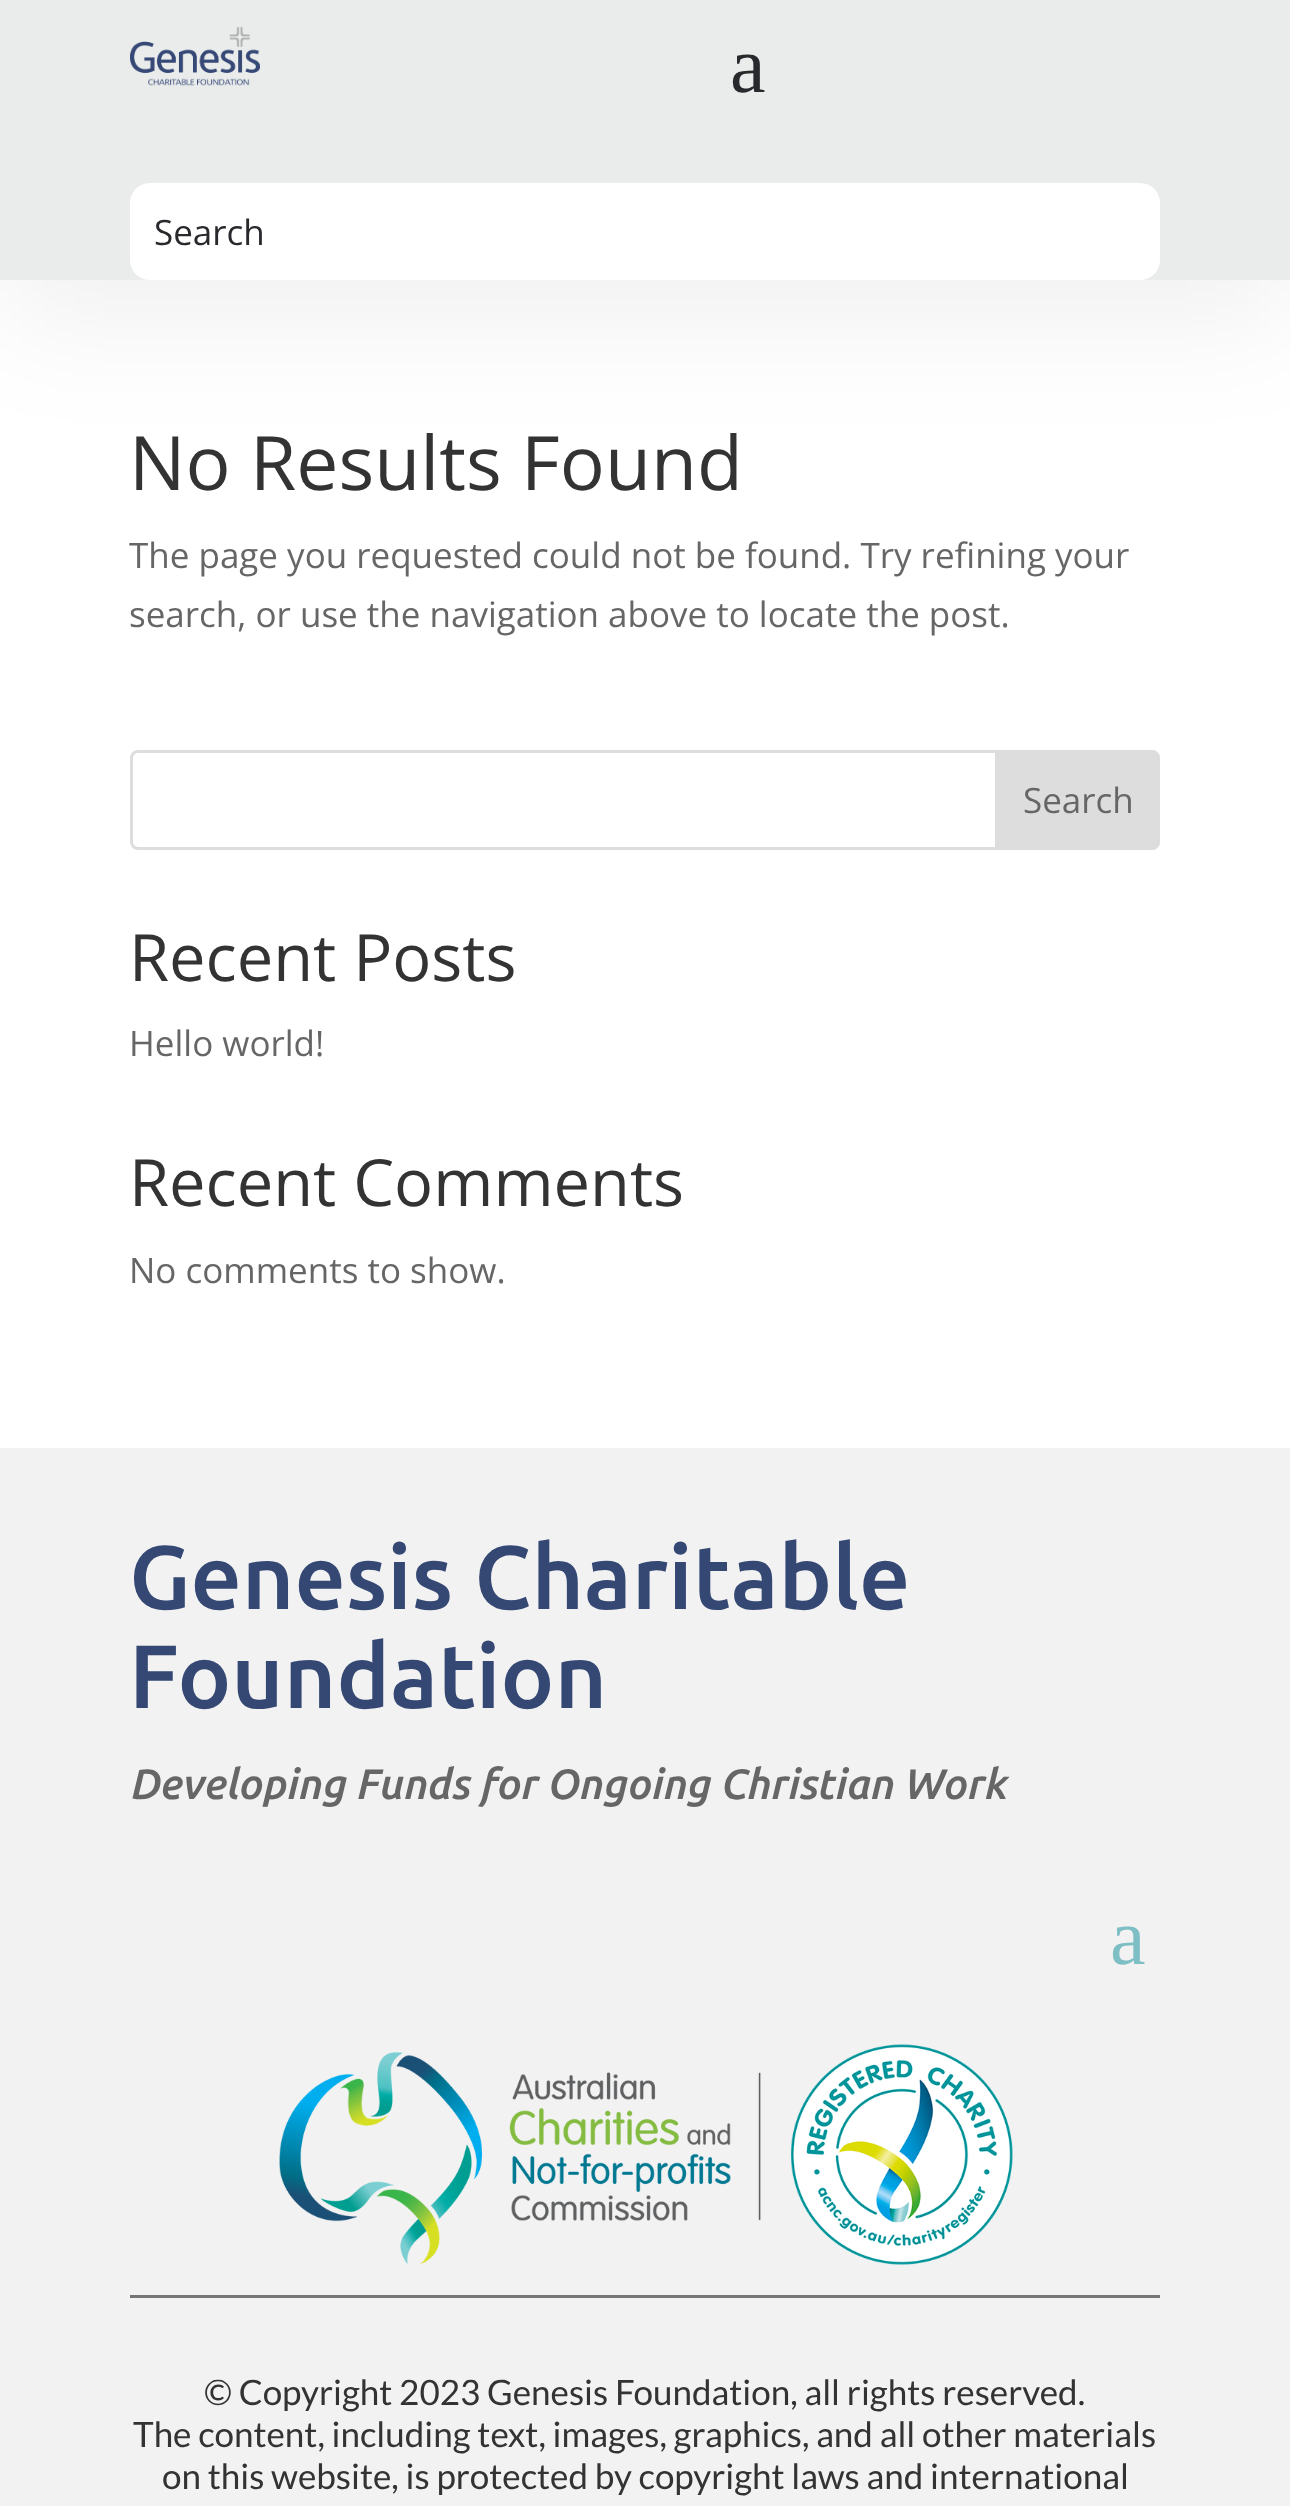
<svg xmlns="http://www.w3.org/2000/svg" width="1290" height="2506">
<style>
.a{font:80px Liberation Serif;fill:#28292d}
.b{font:35px Open Sans;fill:#28292d}
.c{font:75px Open Sans;fill:#333}
.d{font:35px Open Sans;fill:#666}
.e{font:65px Open Sans;fill:#333}
.f{font:500 90px Ubuntu;fill:#354874}
.g{font:italic 500 42.5px Ubuntu;fill:#666}
.h{font:80px Liberation Serif;fill:#7ebec5}
.i{font:35px Lato;fill:#333}
</style>
<rect width="100%" height="100%" fill="#fff"/>
<path fill="#0000000f" filter="blur(60px)" d="M0 38h1290v282H0z"/>
<path fill="#e9eceb" d="M0 0h1290v280H0z"/>
<image href="1.png" x="130" y="27" width="130" height="59"/>
<rect fill="#fff" x="130" y="183" width="1030" height="97" rx="20"/>
<rect fill="none" stroke="#ddd" stroke-width="3" x="131.5" y="751.5" width="1027" height="97" rx="6.5"/>
<path fill="#ddd" stroke="#ddd" stroke-width="3" d="M996.5 751.5h155.5c3.5 0 6.5 3 6.5 6.5v84c0 3.5-3 6.5-6.5 6.5h-155.5z"/>
<path fill="#f2f2f2" d="M0 1448h1290v1058H0z"/>
<image href="2.png" x="279" y="2044" width="734" height="221"/>
<path fill="#757575" d="M130 2295h1030v3H130z"/>
<text class="a" x="730" y="92">a</text>
<text class="b" x="154" y="245">Search</text>
<text class="c" x="129" y="490">No Results Found</text>
<text class="d" x="129" y="568">The page you requested could not be found. Try refining your</text>
<text class="d" x="129" y="627">search, or use the navigation above to locate the post.</text>
<text class="d" x="1023" y="813">Search</text>
<text class="e" x="129" y="981">Recent Posts</text>
<text class="d" x="129" y="1056">Hello world!</text>
<text class="e" x="129" y="1206">Recent Comments</text>
<text class="d" x="129" y="1283">No comments to show.</text>
<text class="f" x="129" y="1609">Genesis Charitable</text>
<text class="f" x="129" y="1708">Foundation</text>
<text class="g" x="129" y="1799">Developing Funds for Ongoing Christian Work</text>
<text class="h" x="1110" y="1964">a</text>
<text class="i" x="204" y="2405">© Copyright 2023 Genesis Foundation, all rights reserved.</text>
<text class="i" x="133" y="2447">The content, including text, images, graphics, and all other materials</text>
<text class="i" x="162" y="2489">on this website, is protected by copyright laws and international</text>
</svg>
